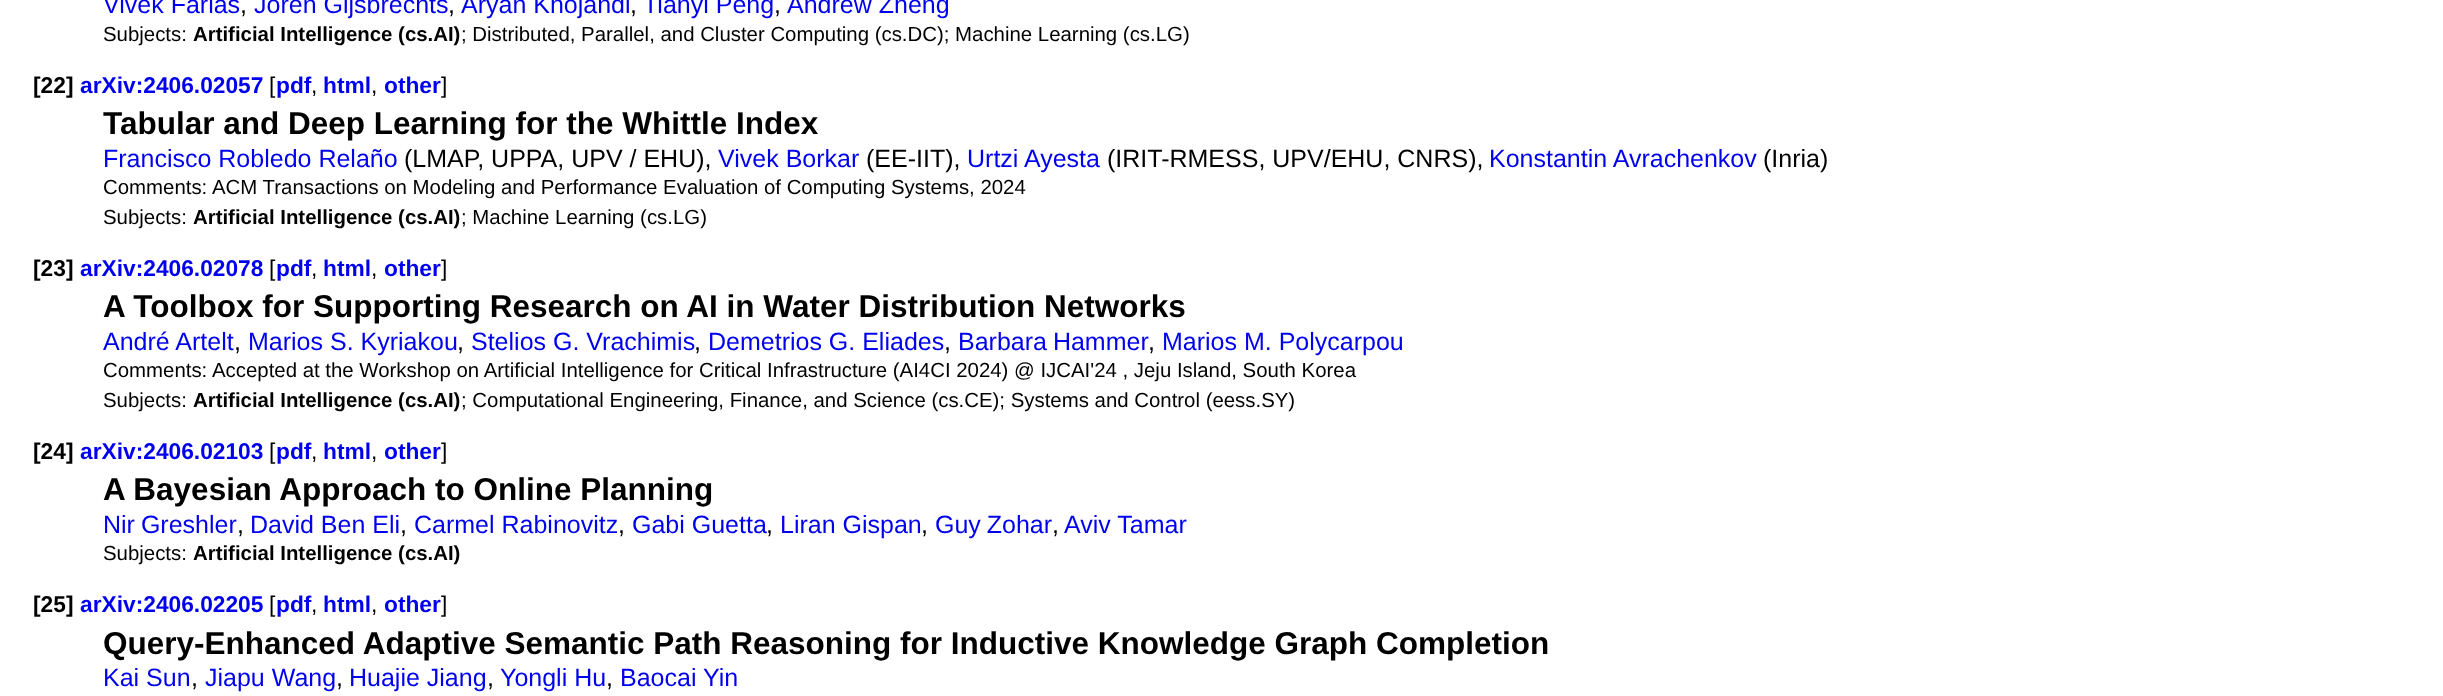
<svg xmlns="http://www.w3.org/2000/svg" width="2443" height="696">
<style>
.a{font:25px Liberation Sans;fill:#00e}
.b{font:25px Liberation Sans;fill:#000}
.c{font:20.4px Liberation Sans;fill:#000}
.d{font:bold 20.4px Liberation Sans;fill:#000}
.e{font:bold 22.75px Liberation Sans;fill:#000}
.f{font:bold 22.75px Liberation Sans;fill:#00e}
.g{font:22.75px Liberation Sans;fill:#000}
.h{font:bold 31.5px Liberation Sans;fill:#000}
</style>
<rect width="100%" height="100%" fill="#fff"/>
<text class="a" x="103" y="13">Vivek Farias</text>
<text class="b" x="240" y="13">,</text>
<text class="a" x="254" y="13">Joren Gijsbrechts</text>
<text class="b" x="448" y="13">,</text>
<text class="a" x="461" y="13">Aryan Khojandi</text>
<text class="b" x="630" y="13">,</text>
<text class="a" x="643" y="13">Tianyi Peng</text>
<text class="b" x="774" y="13">,</text>
<text class="a" x="787" y="13">Andrew Zheng</text>
<text class="c" x="103" y="41">Subjects:</text>
<text class="d" x="193" y="41">Artificial Intelligence (cs.AI)</text>
<text class="c" x="461" y="41">; Distributed, Parallel, and Cluster Computing (cs.DC); Machine Learning (cs.LG)</text>
<text class="e" x="33" y="93">[22]</text>
<text class="f" x="80" y="93">arXiv:2406.02057</text>
<text class="g" x="269" y="93">[</text>
<text class="f" x="276" y="93">pdf</text>
<text class="g" x="311" y="93">,</text>
<text class="f" x="323" y="93">html</text>
<text class="g" x="371" y="93">,</text>
<text class="f" x="384" y="93">other</text>
<text class="g" x="441" y="93">]</text>
<text class="h" x="103" y="134">Tabular and Deep Learning for the Whittle Index</text>
<text class="a" x="103" y="167">Francisco Robledo Relaño</text>
<text class="b" x="404" y="167">(LMAP, UPPA, UPV / EHU),</text>
<text class="a" x="718" y="167">Vivek Borkar</text>
<text class="b" x="866" y="167">(EE-IIT),</text>
<text class="a" x="967" y="167">Urtzi Ayesta</text>
<text class="b" x="1107" y="167">(IRIT-RMESS, UPV/EHU, CNRS),</text>
<text class="a" x="1489" y="167">Konstantin Avrachenkov</text>
<text class="b" x="1763" y="167">(Inria)</text>
<text class="c" x="103" y="194">Comments:</text>
<text class="c" x="212" y="194">ACM Transactions on Modeling and Performance Evaluation of Computing Systems, 2024</text>
<text class="c" x="103" y="224">Subjects:</text>
<text class="d" x="193" y="224">Artificial Intelligence (cs.AI)</text>
<text class="c" x="461" y="224">; Machine Learning (cs.LG)</text>
<text class="e" x="33" y="276">[23]</text>
<text class="f" x="80" y="276">arXiv:2406.02078</text>
<text class="g" x="269" y="276">[</text>
<text class="f" x="276" y="276">pdf</text>
<text class="g" x="311" y="276">,</text>
<text class="f" x="323" y="276">html</text>
<text class="g" x="371" y="276">,</text>
<text class="f" x="384" y="276">other</text>
<text class="g" x="441" y="276">]</text>
<text class="h" x="103" y="317">A Toolbox for Supporting Research on AI in Water Distribution Networks</text>
<text class="a" x="103" y="350">André Artelt</text>
<text class="b" x="234" y="350">,</text>
<text class="a" x="248" y="350">Marios S. Kyriakou</text>
<text class="b" x="457" y="350">,</text>
<text class="a" x="471" y="350">Stelios G. Vrachimis</text>
<text class="b" x="694" y="350">,</text>
<text class="a" x="708" y="350">Demetrios G. Eliades</text>
<text class="b" x="944" y="350">,</text>
<text class="a" x="958" y="350" word-spacing="-1">Barbara Hammer</text>
<text class="b" x="1148" y="350">,</text>
<text class="a" x="1162" y="350">Marios M. Polycarpou</text>
<text class="c" x="103" y="377">Comments:</text>
<text class="c" x="212" y="377">Accepted at the Workshop on Artificial Intelligence for Critical Infrastructure (AI4CI 2024) @ IJCAI'24 , Jeju Island, South Korea</text>
<text class="c" x="103" y="407">Subjects:</text>
<text class="d" x="193" y="407">Artificial Intelligence (cs.AI)</text>
<text class="c" x="461" y="407">; Computational Engineering, Finance, and Science (cs.CE); Systems and Control (eess.SY)</text>
<text class="e" x="33" y="459">[24]</text>
<text class="f" x="80" y="459">arXiv:2406.02103</text>
<text class="g" x="269" y="459">[</text>
<text class="f" x="276" y="459">pdf</text>
<text class="g" x="311" y="459">,</text>
<text class="f" x="323" y="459">html</text>
<text class="g" x="371" y="459">,</text>
<text class="f" x="384" y="459">other</text>
<text class="g" x="441" y="459">]</text>
<text class="h" x="103" y="500">A Bayesian Approach to Online Planning</text>
<text class="a" x="103" y="533" word-spacing="-1">Nir Greshler</text>
<text class="b" x="237" y="533">,</text>
<text class="a" x="250" y="533">David Ben Eli</text>
<text class="b" x="400" y="533">,</text>
<text class="a" x="414" y="533">Carmel Rabinovitz</text>
<text class="b" x="618" y="533">,</text>
<text class="a" x="632" y="533">Gabi Guetta</text>
<text class="b" x="766" y="533">,</text>
<text class="a" x="780" y="533">Liran Gispan</text>
<text class="b" x="921" y="533">,</text>
<text class="a" x="935" y="533" word-spacing="-1">Guy Zohar</text>
<text class="b" x="1052" y="533">,</text>
<text class="a" x="1064" y="533">Aviv Tamar</text>
<text class="c" x="103" y="560">Subjects:</text>
<text class="d" x="193" y="560">Artificial Intelligence (cs.AI)</text>
<text class="e" x="33" y="612">[25]</text>
<text class="f" x="80" y="612">arXiv:2406.02205</text>
<text class="g" x="269" y="612">[</text>
<text class="f" x="276" y="612">pdf</text>
<text class="g" x="311" y="612">,</text>
<text class="f" x="323" y="612">html</text>
<text class="g" x="371" y="612">,</text>
<text class="f" x="384" y="612">other</text>
<text class="g" x="441" y="612">]</text>
<text class="h" x="103" y="654">Query-Enhanced Adaptive Semantic Path Reasoning for Inductive Knowledge Graph Completion</text>
<text class="a" x="103" y="686">Kai Sun</text>
<text class="b" x="191" y="686">,</text>
<text class="a" x="205" y="686">Jiapu Wang</text>
<text class="b" x="336" y="686">,</text>
<text class="a" x="349" y="686">Huajie Jiang</text>
<text class="b" x="487" y="686">,</text>
<text class="a" x="500" y="686">Yongli Hu</text>
<text class="b" x="606" y="686">,</text>
<text class="a" x="620" y="686">Baocai Yin</text>
</svg>
